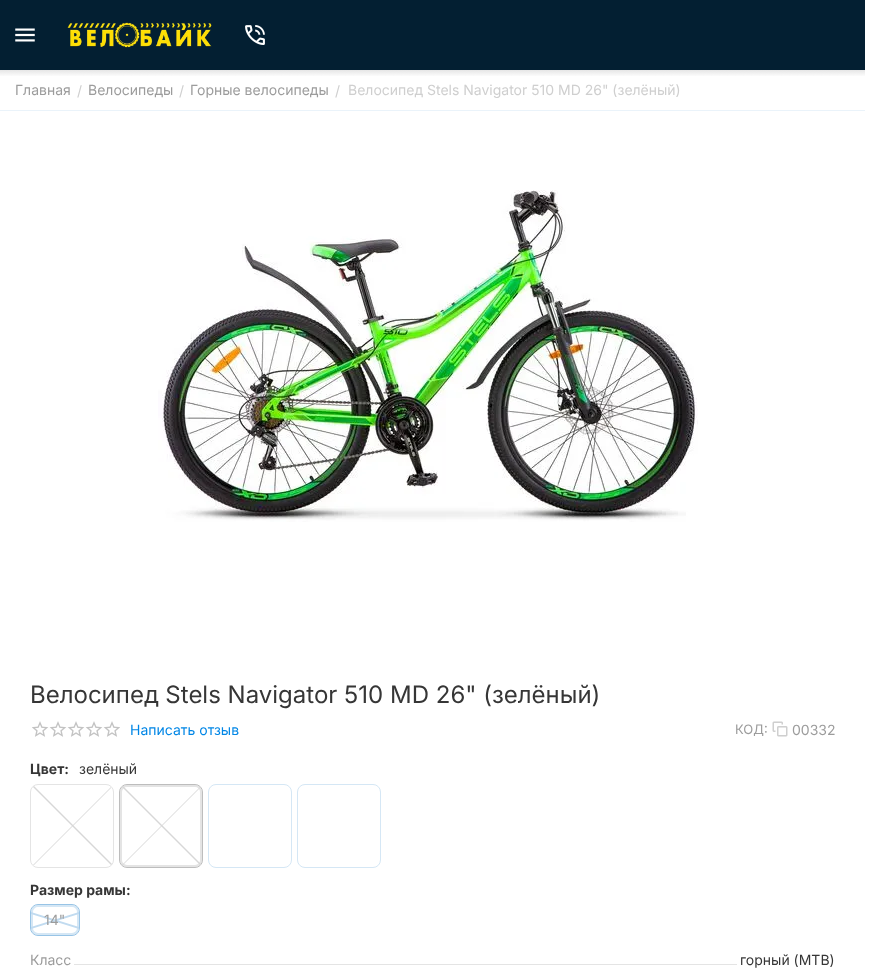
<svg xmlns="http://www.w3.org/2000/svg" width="873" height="974">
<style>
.a{font:14px Inter;fill:#9c9c9c}
.b{font:14px Inter;fill:#cfcfcf}
.c{font:24px Inter;fill:#363636}
.d{font:14px Inter;fill:#0086e6}
.e{font:13px Inter;fill:#9c9c9c}
.f{font:bold 14px Inter;fill:#363636}
.g{font:14px Inter;fill:#363636}
</style>
<defs>
<linearGradient id="g1" gradientUnits="userSpaceOnUse" x1="433" y1="70" x2="433" y2="77"><stop offset="0" stop-color="#e6e6e6"/><stop offset="1" stop-color="#fff"/></linearGradient>
</defs>
<rect width="100%" height="100%" fill="#fff"/>
<path fill="#031f32" d="M0 0h865v70H0z"/>
<image href="1.png" x="15" y="28" width="20" height="14"/>
<image href="2.png" x="67" y="22" width="145" height="26"/>
<image href="3.png" x="245" y="25" width="20" height="20"/>
<path fill="url(#g1)" d="M0 70h865v6H0z"/>
<path fill="#eaf3fa" d="M0 110h865v1H0z"/>
<image href="4.png" x="158" y="190" width="540" height="332"/>
<image href="5.png" x="32" y="721" width="88" height="16"/>
<image href="6.png" x="772" y="721" width="16" height="16"/>
<rect fill="none" stroke="#e4e4e4" x="30.5" y="784.5" width="83" height="83" rx="7.5"/>
<path fill="#d7d7d7" d="M33 787l1-1l78 78l-1 1z"/>
<path fill="#d7d7d7" d="M34 865h-1l78-78v1z"/>
<rect fill="none" stroke="#e4e4e4" stroke-width="2" x="121" y="786" width="80" height="80" rx="6"/>
<rect fill="none" stroke="#bdbdbd" x="119.5" y="784.5" width="83" height="83" rx="7.5"/>
<path fill="#d7d7d7" d="M122 787l1-1l78 78l-1 1z"/>
<path fill="#d7d7d7" d="M123 865h-1l78-78v1z"/>
<rect fill="none" stroke="#d5e7f5" x="208.5" y="784.5" width="83" height="83" rx="7.5"/>
<rect fill="none" stroke="#d5e7f5" x="297.5" y="784.5" width="83" height="83" rx="7.5"/>
<rect fill="none" stroke="#d5e7f5" stroke-width="2" x="32" y="906" width="46" height="28" rx="6"/>
<rect fill="none" stroke="#98c4e6" x="30.5" y="904.5" width="49" height="31" rx="7.5"/>
<path fill="#c1dbf0" d="M31 914v-2l48 15v2z"/>
<path fill="#c1dbf0" d="M31 929v-2l48-15v2z"/>
<path fill="#e4e4e4" d="M74 964h663v1H74z"/>
<text class="a" x="15" y="95">Главная</text>
<text class="b" x="77" y="96">/</text>
<text class="a" x="88" y="95">Велосипеды</text>
<text class="b" x="179" y="96">/</text>
<text class="a" x="190" y="95">Горные велосипеды</text>
<text class="b" x="335" y="96">/</text>
<text class="b" x="348" y="95">Велосипед Stels Navigator 510 MD 26" (зелёный)</text>
<text class="c" x="30" y="703">Велосипед Stels Navigator 510 MD 26" (зелёный)</text>
<text class="d" x="130" y="735">Написать отзыв</text>
<text class="e" x="735" y="734">КОД:</text>
<text class="a" x="792" y="735">00332</text>
<text class="f" x="30" y="774">Цвет:</text>
<text class="g" x="79" y="774">зелёный</text>
<text class="f" x="30" y="895">Размер рамы:</text>
<text class="a" x="44" y="925">14"</text>
<text class="a" x="30" y="965">Класс</text>
<text class="g" x="740" y="965">горный (MTB)</text>
</svg>
